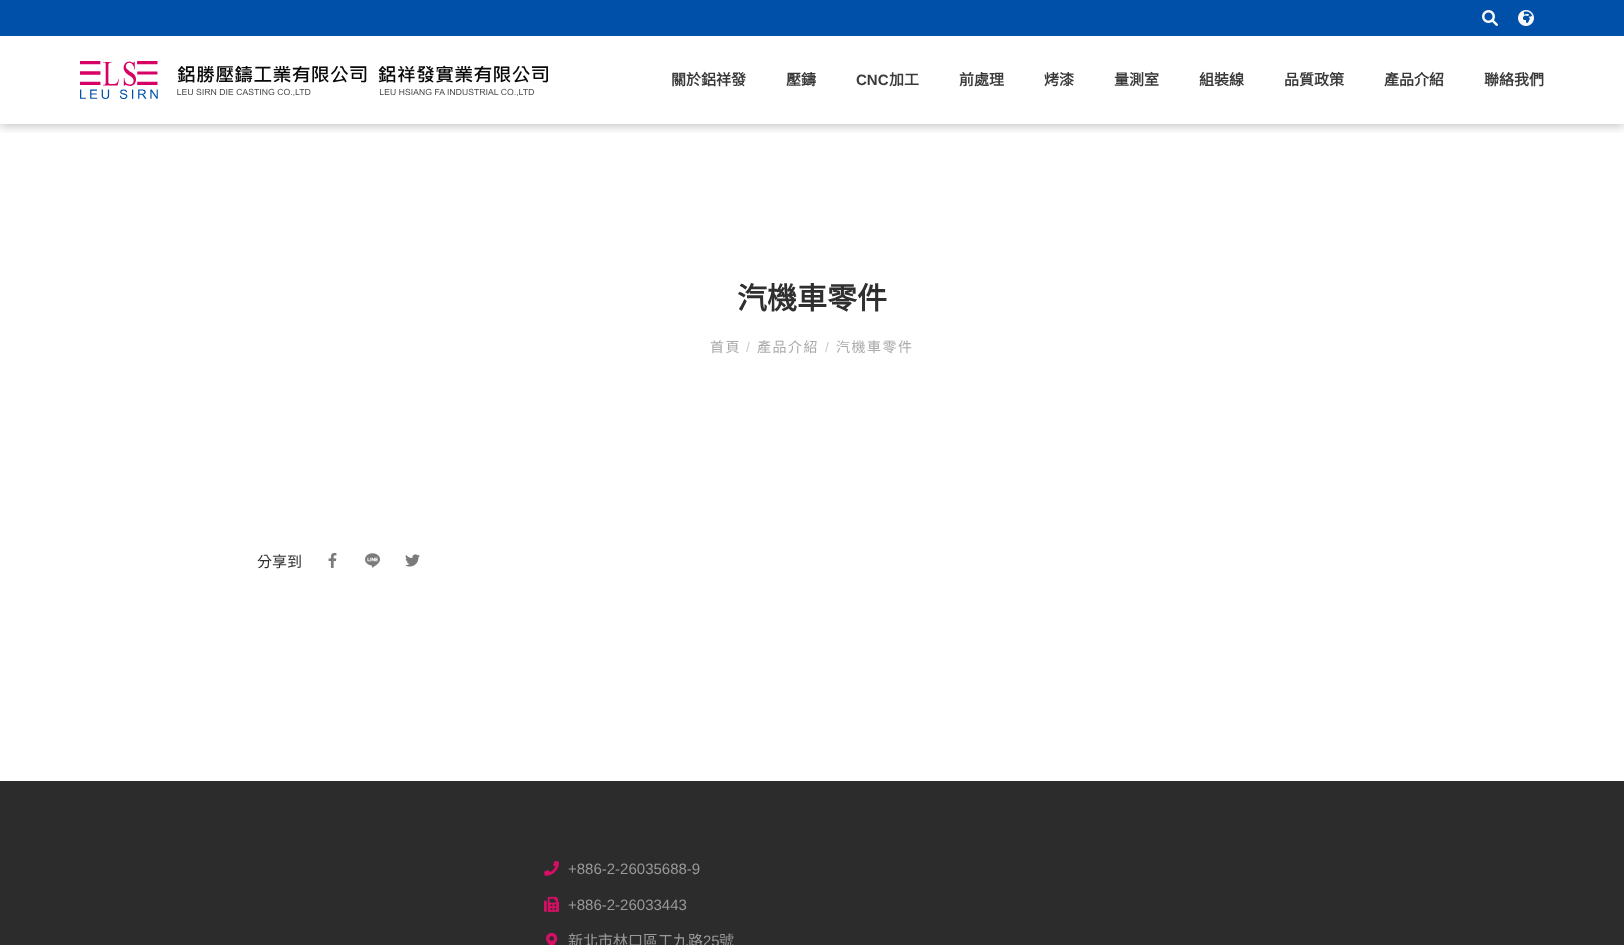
<svg xmlns="http://www.w3.org/2000/svg" width="1624" height="945">
<style>
.a{font:bold 15px Noto Sans CJK TC;fill:#3a3a3a}
.b{font:bold 15px Liberation Sans;fill:#3a3a3a}
.c{font:bold 30px Noto Sans CJK TC;fill:#2f2f2f}
.d{font:14px Noto Sans CJK TC;letter-spacing:1.5px;fill:#aaa}
.e{font:14px Liberation Sans;letter-spacing:1.5px;fill:#ccc}
.f{font:15px Noto Sans CJK TC;fill:#2f2f2f}
.g{font:15px Liberation Sans;fill:#999}
.h{font:15px Noto Sans CJK TC;fill:#999}
</style>
<defs>
<clipPath id="clip1"><path d="M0 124h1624v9H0z"/></clipPath>
</defs>
<rect width="100%" height="100%" fill="#fff"/>
<g clip-path="url(#clip1)">
<path fill="#00000033" filter="blur(5px)" d="M0 3h1624v124H0z"/>
</g>
<path fill="#0050a9" d="M0 0h1624v36H0z"/>
<image href="1.png" x="1482" y="10" width="16" height="16"/>
<image href="2.png" x="1518" y="10" width="16" height="16"/>
<image href="3.png" x="80" y="61" width="468" height="38"/>
<image href="4.png" x="328" y="552" width="9" height="16"/>
<image href="5.png" x="365" y="553" width="15" height="15"/>
<image href="6.png" x="405" y="554" width="15" height="13"/>
<path fill="#2c2c2c" d="M0 781h1624v164H0z"/>
<image href="7.png" x="544" y="860" width="15" height="16"/>
<image href="8.png" x="544" y="896" width="15" height="16"/>
<image href="9.png" x="546" y="932" width="12" height="13"/>
<text class="a" x="671" y="85">關於鋁祥發</text>
<text class="a" x="786" y="85">壓鑄</text>
<text class="b" x="856" y="85">CNC</text>
<text class="a" x="889" y="85">加工</text>
<text class="a" x="959" y="85">前處理</text>
<text class="a" x="1044" y="85">烤漆</text>
<text class="a" x="1114" y="85">量測室</text>
<text class="a" x="1199" y="85">組裝線</text>
<text class="a" x="1284" y="85">品質政策</text>
<text class="a" x="1384" y="85">產品介紹</text>
<text class="a" x="1484" y="85">聯絡我們</text>
<text class="c" x="737" y="309">汽機車零件</text>
<text class="d" x="710" y="352">首頁</text>
<text class="e" x="746" y="352">/</text>
<text class="d" x="757" y="352">產品介紹</text>
<text class="e" x="825" y="352">/</text>
<text class="d" x="836" y="352">汽機車零件</text>
<text class="f" x="257" y="567">分享到</text>
<text class="g" x="568" y="874">+886-2-26035688-9</text>
<text class="g" x="568" y="910">+886-2-26033443</text>
<text class="h" x="568" y="946">新北市林口區工九路</text>
<text class="g" x="703" y="946">25</text>
<text class="h" x="719" y="946">號</text>
</svg>
